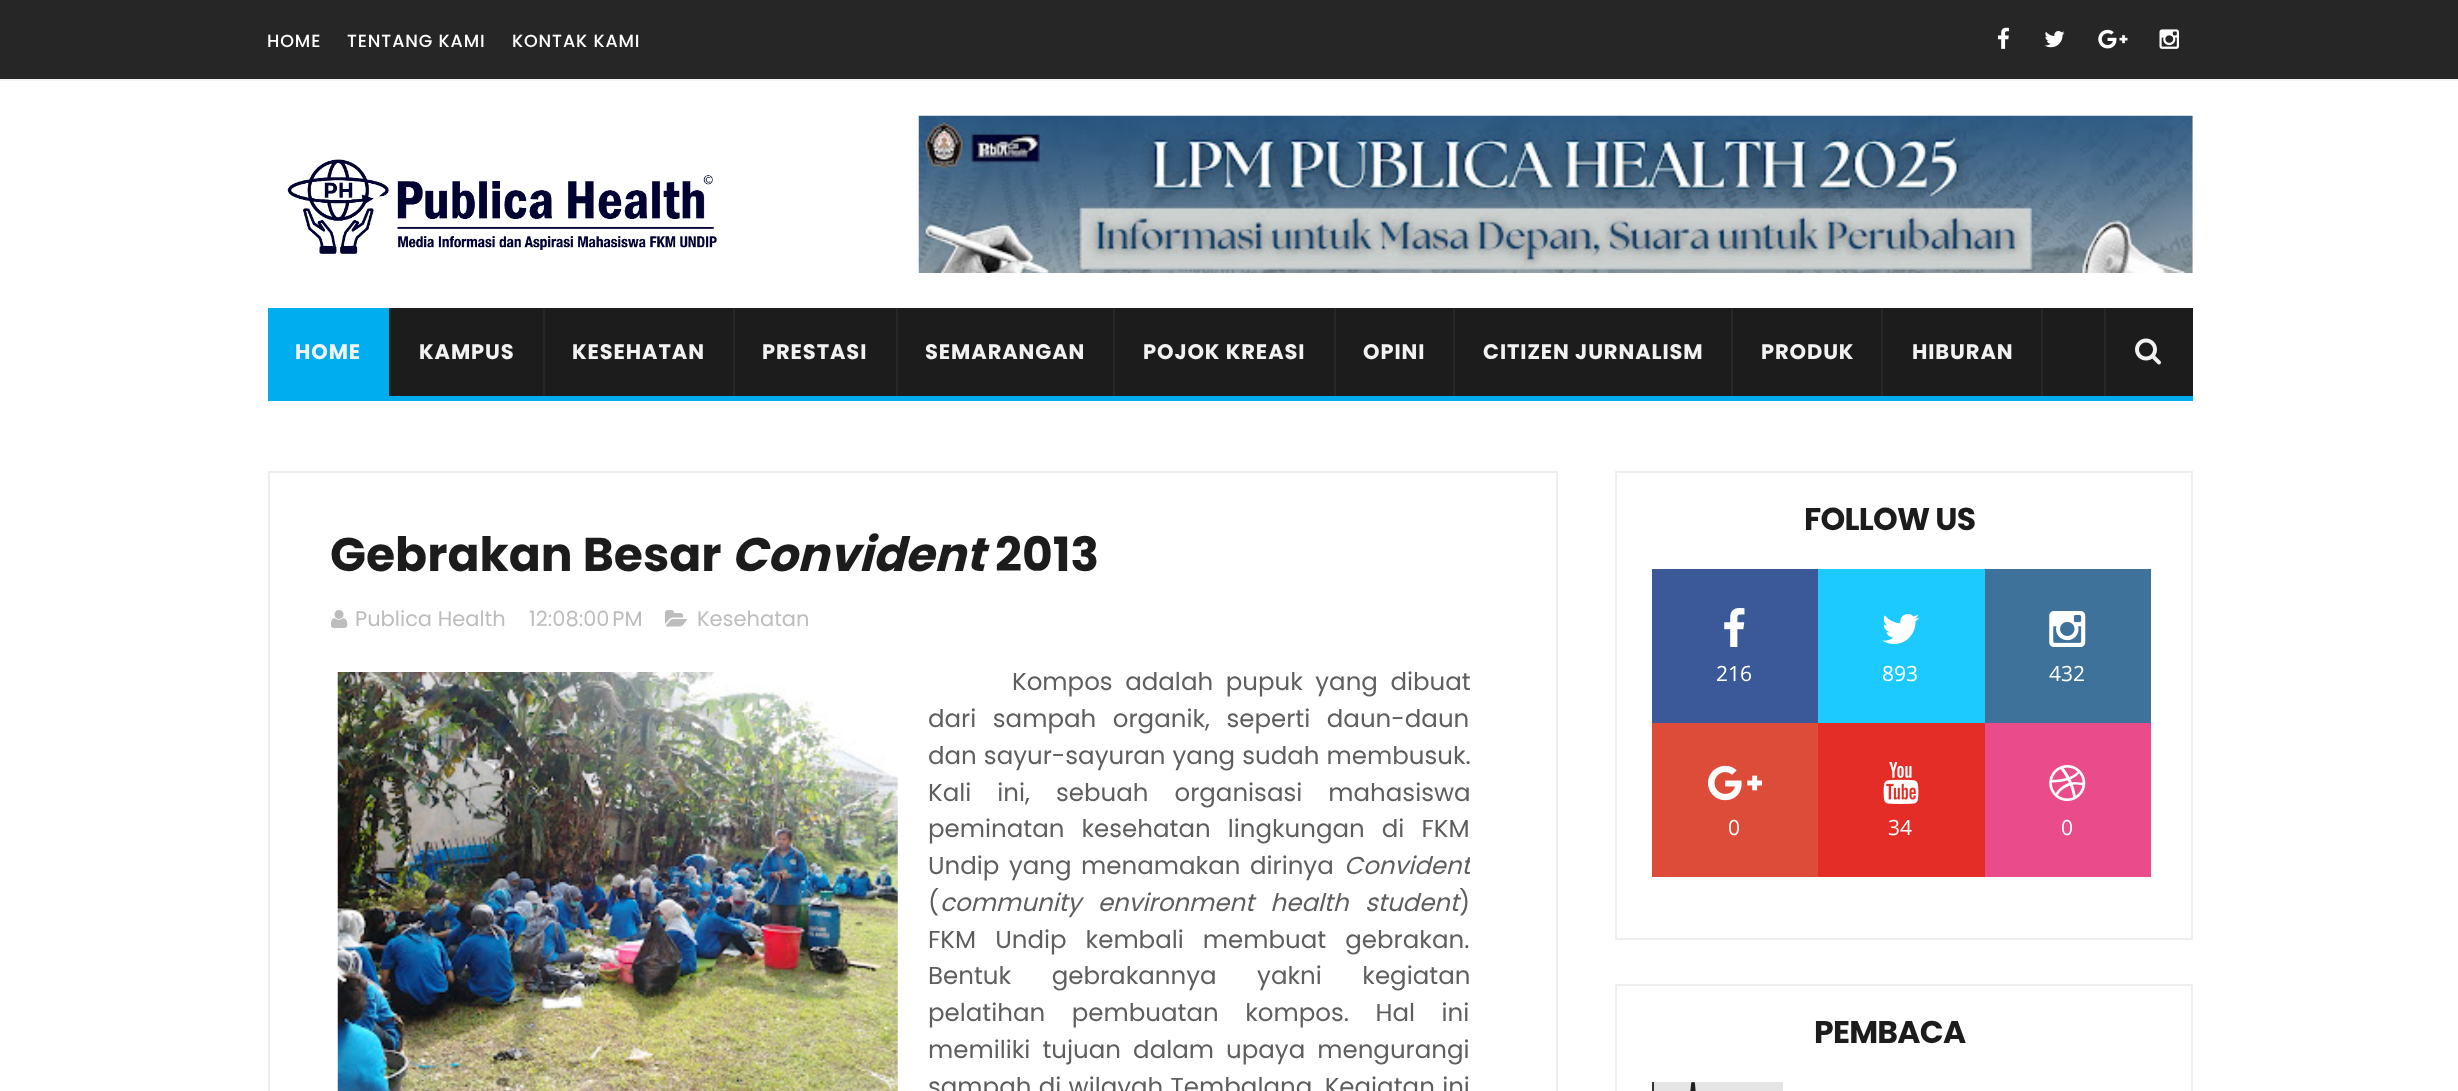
<svg xmlns="http://www.w3.org/2000/svg" width="2458" height="1091">
<style>
.a{font:500 17.5px Poppins;letter-spacing:0.9px;fill:#fff}
.b{font:bold 21px Poppins;letter-spacing:0.9px;fill:#f2f2f2}
.c{font:bold 47.25px Poppins;fill:#1c1c1c}
.d{font:italic bold 47.25px Poppins;fill:#1c1c1c}
.e{font:21px Poppins;fill:#bdbdbd}
.f{font:24.5px Poppins;fill:#5e5e5e}
.g{font:italic 24.5px Poppins;fill:#5e5e5e}
.h{font:bold 31.5px Poppins;letter-spacing:-0.75px;fill:#1c1c1c}
.i{font:21px Open Sans;fill:#fff}
</style>
<defs>
<clipPath id="clip1"><path d="M331 665h1139v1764H331z"/></clipPath>
</defs>
<rect width="100%" height="100%" fill="#fff"/>
<path fill="#262626" d="M0 0h2458v79H0z"/>
<path fill="#f5f5f5" d="M0 79h2458v2H0z"/>
<image href="1.png" x="1997" y="27" width="12" height="22"/>
<image href="2.png" x="2044" y="31" width="21" height="17"/>
<image href="3.png" x="2098" y="29" width="30" height="20"/>
<image href="4.png" x="2159" y="29" width="20" height="20"/>
<image href="5.png" x="287" y="159" width="430" height="95"/>
<image href="6.png" x="918" y="115" width="1275" height="158"/>
<path fill="#1c1c1c" d="M391 308h1802v88H391z"/>
<path fill="#00adef" d="M268 396h1925v5H268z"/>
<path fill="#00adef" d="M268 308h121v88H268z"/>
<path fill="#272727" d="M389 308h2v88H389z"/>
<path fill="#272727" d="M543 308h2v88H543z"/>
<path fill="#272727" d="M733 308h2v88H733z"/>
<path fill="#272727" d="M896 308h2v88H896z"/>
<path fill="#272727" d="M1113 308h2v88H1113z"/>
<path fill="#272727" d="M1334 308h2v88H1334z"/>
<path fill="#272727" d="M1453 308h2v88H1453z"/>
<path fill="#272727" d="M1731 308h2v88H1731z"/>
<path fill="#272727" d="M1881 308h2v88H1881z"/>
<path fill="#272727" d="M2041 308h2v88H2041z"/>
<path fill="#272727" d="M2104 308h2v88H2104z"/>
<image href="7.png" x="2135" y="338" width="26" height="27"/>
<path fill="none" stroke="#eee" stroke-width="2" d="M269 472h1288v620H269z"/>
<image href="8.png" x="331" y="610" width="17" height="18"/>
<image href="9.png" x="665" y="610" width="22" height="17"/>
<image href="10.png" x="337" y="672" width="561" height="419"/>
<path fill="none" stroke="#eee" stroke-width="2" d="M1616 472h576v467H1616z"/>
<path fill="#3b5998" d="M1652 569h166v154H1652z"/>
<image href="11.png" x="1724" y="608" width="21" height="39"/>
<path fill="#1dcaff" d="M1818 569h167v154H1818z"/>
<image href="12.png" x="1882" y="614" width="37" height="30"/>
<path fill="#3f729b" d="M1985 569h166v154H1985z"/>
<image href="13.png" x="2049" y="611" width="37" height="36"/>
<path fill="#dd4b39" d="M1652 723h166v154H1652z"/>
<image href="14.png" x="1708" y="765" width="54" height="36"/>
<path fill="#e52d27" d="M1818 723h167v154H1818z"/>
<image href="15.png" x="1883" y="762" width="36" height="42"/>
<path fill="#ea4c89" d="M1985 723h166v154H1985z"/>
<image href="16.png" x="2049" y="765" width="37" height="36"/>
<path fill="none" stroke="#eee" stroke-width="2" d="M1616 985h576v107H1616z"/>
<image href="17.png" x="1652" y="1082" width="131" height="9"/>
<text class="a" x="267" y="47">HOME</text>
<text class="a" x="347" y="47">TENTANG KAMI</text>
<text class="a" x="512" y="47">KONTAK KAMI</text>
<text class="b" x="295" y="359">HOME</text>
<text class="b" x="419" y="359">KAMPUS</text>
<text class="b" x="572" y="359">KESEHATAN</text>
<text class="b" x="762" y="359">PRESTASI</text>
<text class="b" x="925" y="359">SEMARANGAN</text>
<text class="b" x="1143" y="359">POJOK KREASI</text>
<text class="b" x="1363" y="359">OPINI</text>
<text class="b" x="1483" y="359">CITIZEN JURNALISM</text>
<text class="b" x="1761" y="359">PRODUK</text>
<text class="b" x="1912" y="359">HIBURAN</text>
<text class="c" x="330" y="571">Gebrakan Besar</text>
<text class="d" x="731" y="571">Convident</text>
<text class="c" x="995" y="571">2013</text>
<text class="e" x="355" y="626">Publica Health</text>
<text class="e" x="529" y="626">12:08:00 PM</text>
<text class="e" x="697" y="626">Kesehatan</text>
<text class="f" x="1012" y="690" word-spacing="6">Kompos adalah pupuk yang dibuat</text>
<text class="f" x="928" y="727" word-spacing="10">dari sampah organik, seperti daun-daun</text>
<text class="f" x="928" y="764" word-spacing="0.5">dan sayur-sayuran yang sudah membusuk.</text>
<text class="f" x="928" y="801" word-spacing="19.5">Kali ini, sebuah organisasi mahasiswa</text>
<text class="f" x="928" y="837" word-spacing="10.5">peminatan kesehatan lingkungan di FKM</text>
<text class="f" x="928" y="874" word-spacing="3">Undip yang menamakan dirinya</text>
<g clip-path="url(#clip1)">
<text class="g" x="1344" y="874">Convident</text>
</g>
<text class="f" x="928" y="911">(</text>
<text class="g" x="940" y="911" word-spacing="10">community environment health student</text>
<text class="f" x="1459" y="911">)</text>
<text class="f" x="928" y="948" word-spacing="12.5">FKM Undip kembali membuat gebrakan.</text>
<text class="f" x="928" y="984" word-spacing="34">Bentuk gebrakannya yakni kegiatan</text>
<text class="f" x="928" y="1021" word-spacing="20">pelatihan pembuatan kompos. Hal ini</text>
<text class="f" x="928" y="1058" word-spacing="5.5">memiliki tujuan dalam upaya mengurangi</text>
<text class="f" x="928" y="1095" word-spacing="0.75">sampah di wilayah Tembalang. Kegiatan ini</text>
<text class="h" x="1804" y="530">FOLLOW US</text>
<text class="i" x="1716" y="681">216</text>
<text class="i" x="1882" y="681">893</text>
<text class="i" x="2049" y="681">432</text>
<text class="i" x="1728" y="835">0</text>
<text class="i" x="1888" y="835">34</text>
<text class="i" x="2061" y="835">0</text>
<text class="h" x="1814" y="1043">PEMBACA</text>
</svg>
